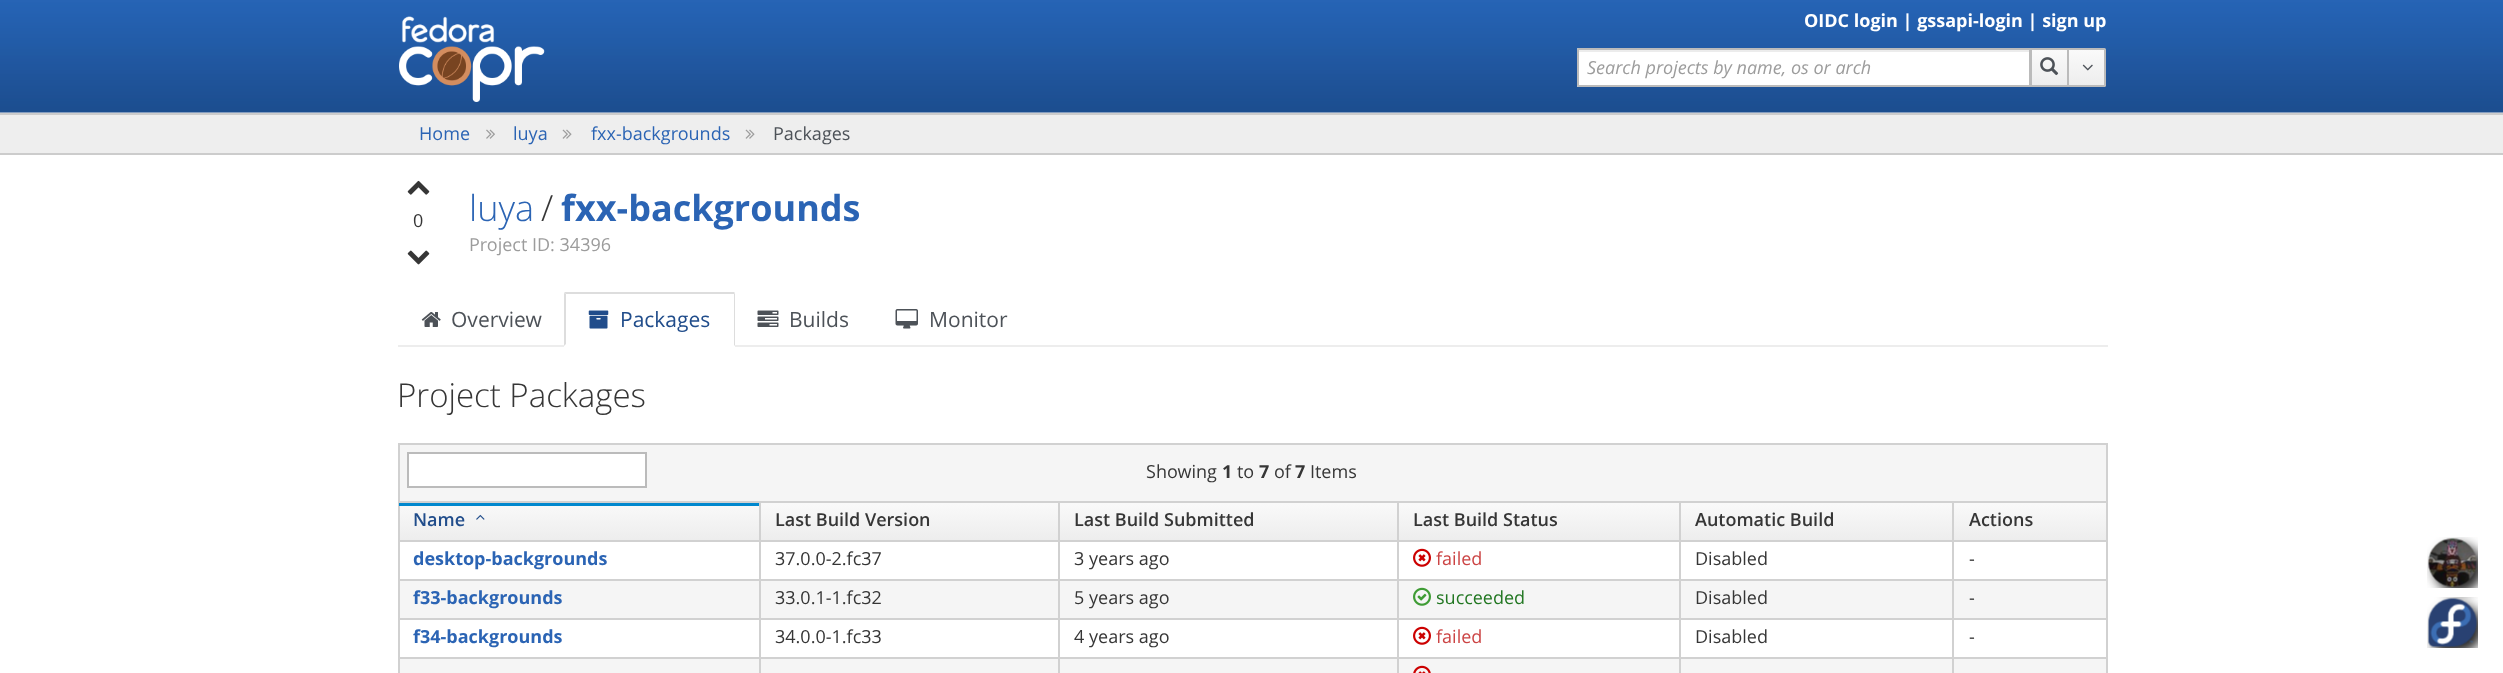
<svg xmlns="http://www.w3.org/2000/svg" width="2503" height="673">
<style>
.a{font:bold 18px Open Sans;fill:#fff}
.b{font:italic 18px Open Sans;fill:#9c9c9c}
.c{font:18px Open Sans;fill:#2b64b4}
.d{font:18px Open Sans;fill:#4d5258}
.e{font:18px Open Sans;fill:#363636}
.f{font:300 36px Open Sans;fill:#2b64b4}
.g{font:300 36px Open Sans;fill:#363636}
.h{font:bold 36px Open Sans;fill:#2b64b4}
.i{font:18px Open Sans;fill:#9c9c9c}
.j{font:21px Open Sans;fill:#4d5258}
.k{font:21px Open Sans;fill:#214d8b}
.l{font:300 33px Open Sans;fill:#363636}
.m{font:bold 18px Open Sans;fill:#363636}
.n{font:600 18px Open Sans;fill:#214d8b}
.o{font:600 18px Open Sans;fill:#363636}
.p{font:bold 18px Open Sans;fill:#2b64b4}
.q{font:18px Open Sans;fill:#c44}
.r{font:18px Open Sans;fill:#272}
</style>
<defs>
<linearGradient id="g1" gradientUnits="userSpaceOnUse" x1="2049" y1="50" x2="2049" y2="86"><stop offset="0" stop-color="#fafafa"/><stop offset="1" stop-color="#ededed"/></linearGradient>
<linearGradient id="g2" gradientUnits="userSpaceOnUse" x1="2087" y1="50" x2="2087" y2="86"><stop offset="0" stop-color="#fafafa"/><stop offset="1" stop-color="#ededed"/></linearGradient>
<linearGradient id="g3" gradientUnits="userSpaceOnUse" x1="1252" y1="501" x2="1252" y2="540"><stop offset="0" stop-color="#fafafa"/><stop offset="1" stop-color="#ededed"/></linearGradient>
</defs>
<rect width="100%" height="100%" fill="#eee"/>
<image href="1.png" x="0" y="0" width="2503" height="113"/>
<image href="2.png" x="399" y="16" width="146" height="86"/>
<path fill="#fff" d="M1578.5 48h452.5v39h-452.5c-1 0-1.5-.5-1.5-1.5v-36c0-1 .5-1.5 1.5-1.5z"/>
<path fill="#ececec" d="M1578 50h452v2H1578z"/>
<path fill="none" stroke="#bbb" stroke-width="2" d="M1578.5 49h451.5v37h-451.5c-.5 0-.5 0-.5-.5v-36c0-.5 0-.5 .5-.5z"/>
<path fill="url(#g1)" d="M2032 50h35v35H2032z"/>
<path fill="none" stroke="#bbb" stroke-width="2" d="M2031 49h37v37H2031z"/>
<image href="3.png" x="2040" y="57" width="19" height="19"/>
<path fill="url(#g2)" d="M2069 50h37v36H2069z"/>
<path fill="none" stroke="#bbb" stroke-width="2" d="M2068 49h36.5c.5 0 .5 0 .5 .5v36c0 .5 0 .5-.5 .5h-36.5z"/>
<image href="4.png" x="2082" y="64" width="11" height="7"/>
<path fill="#ccc" d="M0 113h2503v2H0z"/>
<path fill="#ccc" d="M0 153h2503v2H0z"/>
<image href="5.png" x="486" y="129" width="9" height="10"/>
<image href="6.png" x="562" y="129" width="10" height="10"/>
<image href="6.png" x="745" y="129" width="10" height="10"/>
<path fill="#fff" d="M0 155h2503v518H0z"/>
<image href="7.png" x="407" y="180" width="23" height="15"/>
<image href="8.png" x="407" y="250" width="23" height="15"/>
<path fill="#ededed" d="M398 345h1710v2H398z"/>
<image href="9.png" x="421" y="312" width="20" height="15"/>
<path fill="#fff" d="M565.5 293h168c1 0 1.5 .5 1.5 1.5v52.5h-171v-52.5c0-1 .5-1.5 1.5-1.5z"/>
<path fill="#ddd" d="M566 294l-2-1l1-1h169l1 1l-1 1z"/>
<path fill="#ddd" d="M735 346v-53l-1 1v51z"/>
<path fill="#ddd" d="M564 294v52l2-2v-50l-2-1z"/>
<image href="10.png" x="588" y="310" width="21" height="19"/>
<image href="11.png" x="757" y="310" width="22" height="17"/>
<image href="12.png" x="895" y="309" width="23" height="20"/>
<path fill="#f5f5f5" d="M400 445h1706v56H400z"/>
<path fill="#d1d1d1" d="M398 443h1710v2H398z"/>
<path fill="#d1d1d1" d="M2106 443h2v58H2106z"/>
<path fill="#d1d1d1" d="M398 443h2v58H398z"/>
<path fill="#fff" stroke="#bbb" stroke-width="2" d="M408 453h238v34H408z"/>
<path fill="#d1d1d1" d="M398 501h1710v2H398z"/>
<path fill="#d1d1d1" d="M2106 501h2v172H2106z"/>
<path fill="#d1d1d1" d="M398 501h2v172H398z"/>
<path fill="url(#g3)" d="M400 503h1706v37H400z"/>
<path fill="#0088ce" d="M399 503h360v3H399z"/>
<image href="13.png" x="476" y="514" width="9" height="6"/>
<path fill="#d1d1d1" d="M1952 540h156v2H1952z"/>
<path fill="#d1d1d1" d="M1952 579h156v2H1952z"/>
<path fill="#f5f5f5" d="M400 581h1706v37H400z"/>
<path fill="#d1d1d1" d="M1952 618h156v2H1952z"/>
<path fill="#d1d1d1" d="M1952 657h156v2H1952z"/>
<path fill="#f5f5f5" d="M400 659h1706v14H400z"/>
<path fill="#d1d1d1" d="M1952 657h2v16H1952z"/>
<path fill="#d1d1d1" d="M1679 657h274v2H1679z"/>
<path fill="#d1d1d1" d="M1952 618h2v41H1952z"/>
<path fill="#d1d1d1" d="M1679 618h274v2H1679z"/>
<path fill="#d1d1d1" d="M1952 579h2v41H1952z"/>
<path fill="#d1d1d1" d="M1679 579h274v2H1679z"/>
<path fill="#d1d1d1" d="M1952 540h2v41H1952z"/>
<path fill="#d1d1d1" d="M1679 540h274v2H1679z"/>
<path fill="#d1d1d1" d="M1679 657h2v16H1679z"/>
<path fill="#d1d1d1" d="M1397 657h283v2H1397z"/>
<path fill="#d1d1d1" d="M1679 618h2v41H1679z"/>
<path fill="#d1d1d1" d="M1397 618h283v2H1397z"/>
<path fill="#d1d1d1" d="M1679 579h2v41H1679z"/>
<path fill="#d1d1d1" d="M1397 579h283v2H1397z"/>
<path fill="#d1d1d1" d="M1679 540h2v41H1679z"/>
<path fill="#d1d1d1" d="M1397 540h283v2H1397z"/>
<path fill="#d1d1d1" d="M1397 657h2v16H1397z"/>
<path fill="#d1d1d1" d="M1058 657h340v2H1058z"/>
<path fill="#d1d1d1" d="M1397 618h2v41H1397z"/>
<path fill="#d1d1d1" d="M1058 618h340v2H1058z"/>
<path fill="#d1d1d1" d="M1397 579h2v41H1397z"/>
<path fill="#d1d1d1" d="M1058 579h340v2H1058z"/>
<path fill="#d1d1d1" d="M1397 540h2v41H1397z"/>
<path fill="#d1d1d1" d="M1058 540h340v2H1058z"/>
<path fill="#d1d1d1" d="M1058 657h2v16H1058z"/>
<path fill="#d1d1d1" d="M759 657h300v2H759z"/>
<path fill="#d1d1d1" d="M1058 618h2v41H1058z"/>
<path fill="#d1d1d1" d="M759 618h300v2H759z"/>
<path fill="#d1d1d1" d="M1058 579h2v41H1058z"/>
<path fill="#d1d1d1" d="M759 579h300v2H759z"/>
<path fill="#d1d1d1" d="M1058 540h2v41H1058z"/>
<path fill="#d1d1d1" d="M759 540h300v2H759z"/>
<path fill="#d1d1d1" d="M759 657h2v16H759z"/>
<path fill="#d1d1d1" d="M398 657h363v2H398z"/>
<path fill="#d1d1d1" d="M759 618h2v41H759z"/>
<path fill="#d1d1d1" d="M398 618h363v2H398z"/>
<path fill="#d1d1d1" d="M759 579h2v41H759z"/>
<path fill="#d1d1d1" d="M398 579h363v2H398z"/>
<path fill="#d1d1d1" d="M759 540h2v41H759z"/>
<path fill="#d1d1d1" d="M398 540h363v2H398z"/>
<path fill="#d1d1d1" d="M759 501h2v41H759z"/>
<path fill="#d1d1d1" d="M1058 501h2v41H1058z"/>
<path fill="#d1d1d1" d="M1397 501h2v41H1397z"/>
<path fill="#d1d1d1" d="M1679 501h2v41H1679z"/>
<path fill="#d1d1d1" d="M1952 501h2v41H1952z"/>
<image href="14.png" x="1413" y="548" width="18" height="19"/>
<image href="15.png" x="1413" y="587" width="18" height="19"/>
<image href="14.png" x="1413" y="626" width="18" height="19"/>
<image href="16.png" x="1413" y="665" width="18" height="8"/>
<image href="17.png" x="2427" y="537" width="51" height="51"/>
<image href="18.png" x="2427" y="597" width="51" height="51"/>
<text class="a" x="1804" y="27">OIDC login | gssapi-login | sign up</text>
<text class="b" x="1587" y="74">Search projects by name, os or arch</text>
<text class="c" x="419" y="140">Home</text>
<text class="c" x="513" y="140">luya</text>
<text class="c" x="591" y="140">fxx-backgrounds</text>
<text class="d" x="773" y="140">Packages</text>
<text class="e" x="413" y="227">0</text>
<text class="f" x="469" y="221">luya</text>
<text class="g" x="541" y="221">/</text>
<text class="h" x="561" y="221">fxx-backgrounds</text>
<text class="i" x="469" y="251">Project ID: 34396</text>
<text class="j" x="451" y="327">Overview</text>
<text class="k" x="620" y="327">Packages</text>
<text class="j" x="789" y="327">Builds</text>
<text class="j" x="929" y="327">Monitor</text>
<text class="l" x="397" y="407">Project Packages</text>
<text class="e" x="1146" y="478">Showing</text>
<text class="m" x="1222" y="478">1</text>
<text class="e" x="1237" y="478">to</text>
<text class="m" x="1259" y="478">7</text>
<text class="e" x="1274" y="478">of</text>
<text class="m" x="1295" y="478">7</text>
<text class="e" x="1310" y="478">Items</text>
<text class="n" x="413" y="526">Name</text>
<text class="o" x="775" y="526">Last Build Version</text>
<text class="o" x="1074" y="526">Last Build Submitted</text>
<text class="o" x="1413" y="526">Last Build Status</text>
<text class="o" x="1695" y="526">Automatic Build</text>
<text class="o" x="1969" y="526">Actions</text>
<text class="p" x="413" y="565">desktop-backgrounds</text>
<text class="e" x="775" y="565">37.0.0-2.fc37</text>
<text class="e" x="1074" y="565">3 years ago</text>
<text class="q" x="1436" y="565">failed</text>
<text class="e" x="1695" y="565">Disabled</text>
<text class="e" x="1969" y="565">-</text>
<text class="p" x="413" y="604">f33-backgrounds</text>
<text class="e" x="775" y="604">33.0.1-1.fc32</text>
<text class="e" x="1074" y="604">5 years ago</text>
<text class="r" x="1436" y="604">succeeded</text>
<text class="e" x="1695" y="604">Disabled</text>
<text class="e" x="1969" y="604">-</text>
<text class="p" x="413" y="643">f34-backgrounds</text>
<text class="e" x="775" y="643">34.0.0-1.fc33</text>
<text class="e" x="1074" y="643">4 years ago</text>
<text class="q" x="1436" y="643">failed</text>
<text class="e" x="1695" y="643">Disabled</text>
<text class="e" x="1969" y="643">-</text>
</svg>
